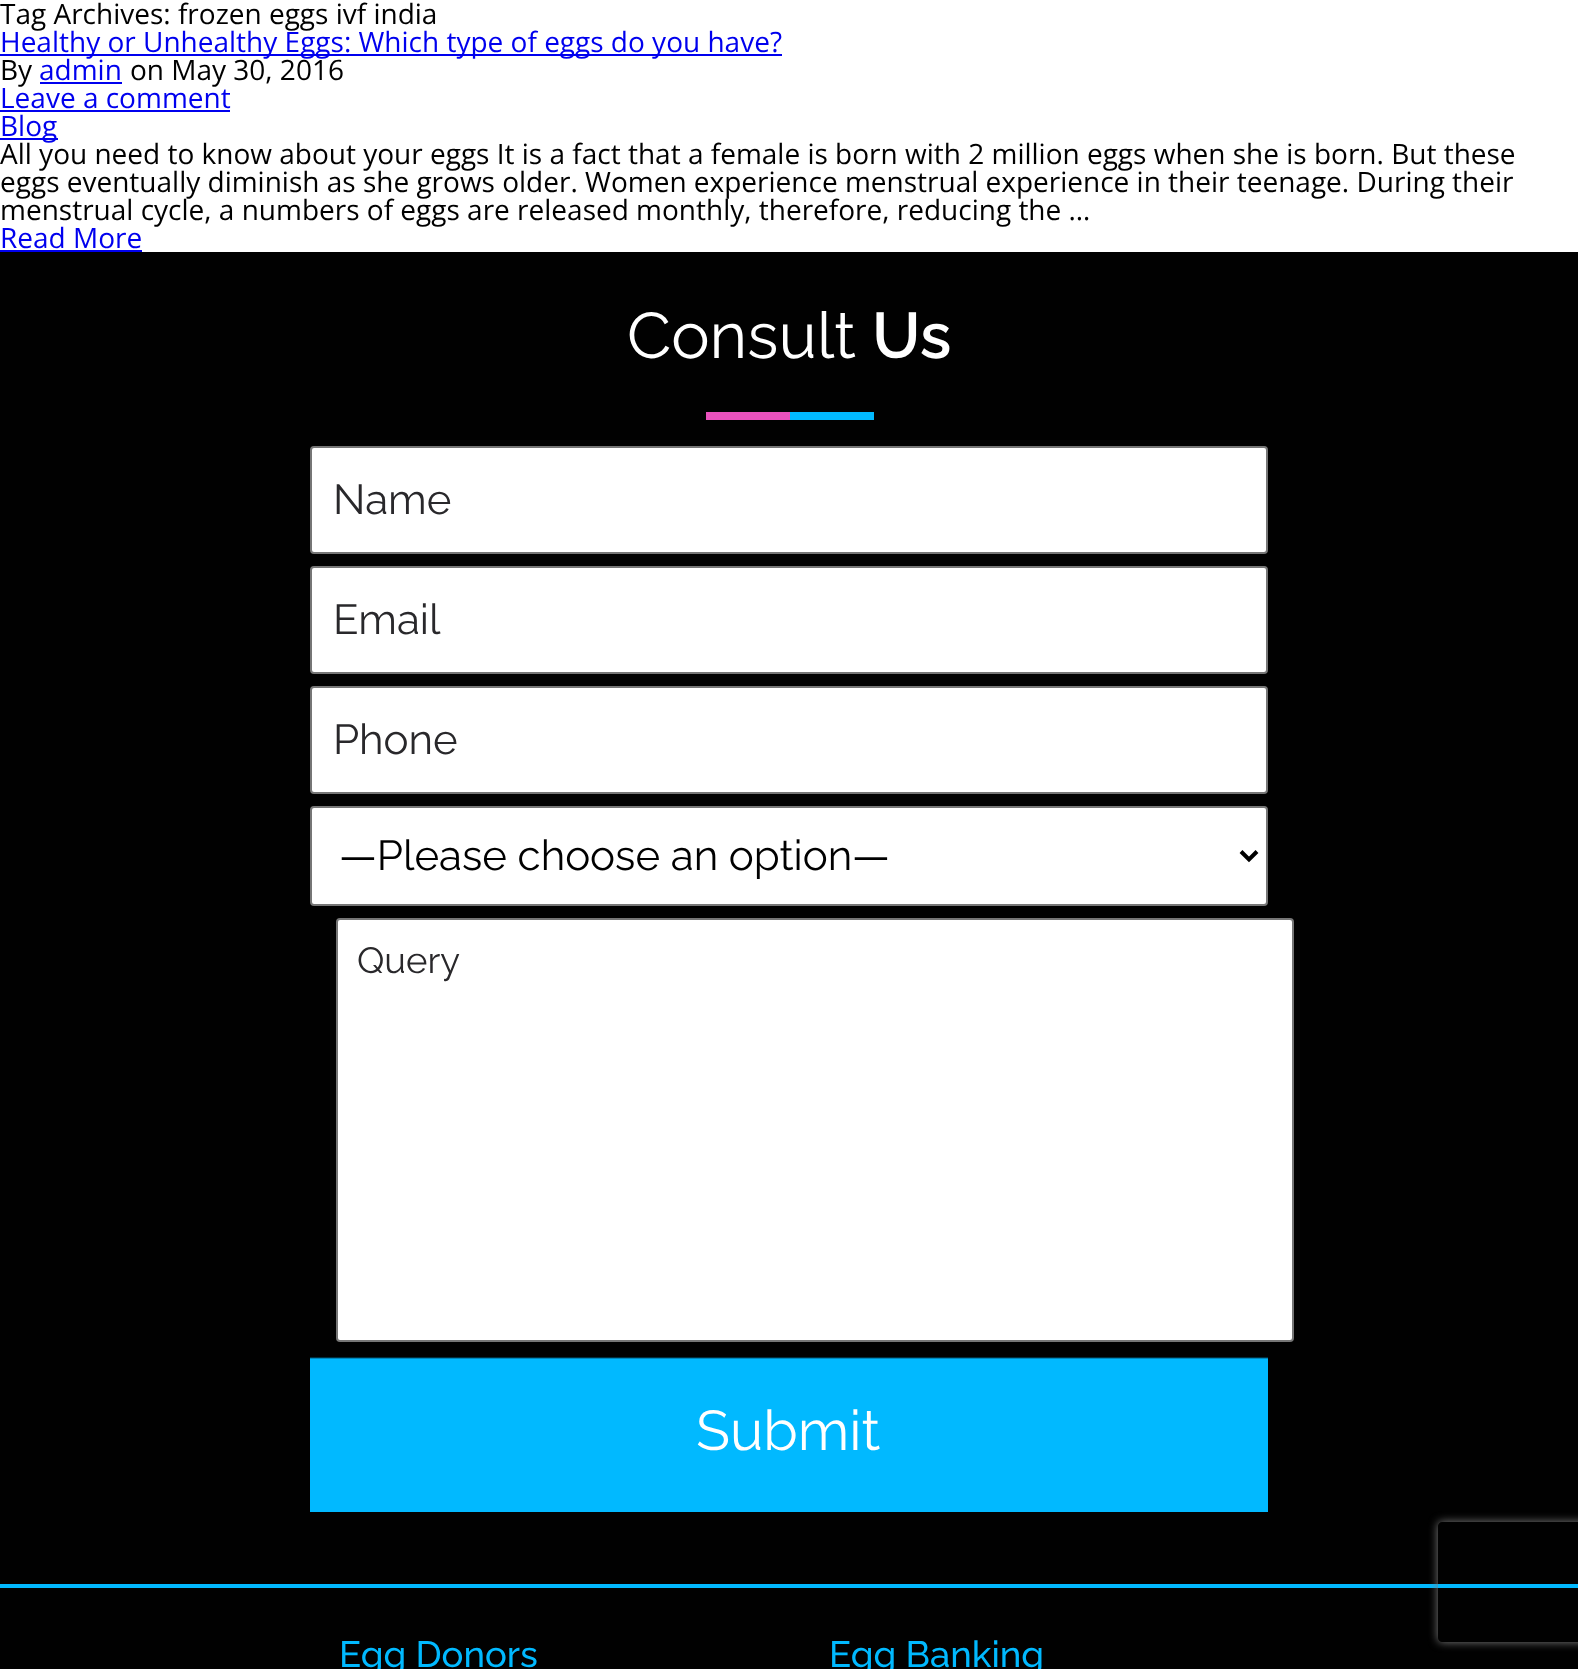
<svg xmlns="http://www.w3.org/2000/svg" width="1578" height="1669">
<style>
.a{font:28px Open Sans;fill:#000}
.b{font:28px Open Sans;fill:#00e}
.c{font:64.5px Raleway;fill:#fff}
.d{font:600 64.5px Raleway;fill:#fff}
.e{font:42px Raleway;fill:#29282b}
.f{font:42px Raleway;fill:#000}
.g{font:36.5px Raleway;fill:#29282b}
.h{font:56px Raleway;fill:#fff}
.i{font:500 36.5px Raleway;fill:#01b9ff}
</style>
<defs>
<clipPath id="clip1"><path d="M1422 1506h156v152h-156zm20 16h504c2 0 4 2 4 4v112c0 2-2 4-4 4h-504c-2 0-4-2-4-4v-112c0-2 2-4 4-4z" clip-rule="evenodd"/></clipPath>
</defs>
<rect width="100%" height="100%" fill="#fff"/>
<path fill="#00e" d="M0 54h782v2H0z"/>
<path fill="#00e" d="M40 82h82v2H40z"/>
<path fill="#00e" d="M0 110h230v2H0z"/>
<path fill="#00e" d="M0 138h58v2H0z"/>
<path fill="#00e" d="M0 250h142v2H0z"/>
<path fill="#010101" d="M0 252h1578v1417H0z"/>
<path fill="#ea51bd" d="M706 412h84v8H706z"/>
<path fill="#01b9ff" d="M790 412h84v8H790z"/>
<rect fill="#fff" stroke="#767676" stroke-width="2" x="311" y="447" width="956" height="106" rx="3"/>
<rect fill="#fff" stroke="#767676" stroke-width="2" x="311" y="567" width="956" height="106" rx="3"/>
<rect fill="#fff" stroke="#767676" stroke-width="2" x="311" y="687" width="956" height="106" rx="3"/>
<rect fill="#fff" stroke="#767676" stroke-width="2" x="311" y="807" width="956" height="98" rx="3"/>
<path fill="none" stroke="#000" stroke-width="4" d="M1241 851.5l8 8l8-8"/>
<rect fill="#fff" stroke="#767676" stroke-width="2" x="337" y="919" width="956" height="422" rx="3"/>
<image href="1.png" x="310" y="1357" width="958" height="155"/>
<path fill="#01b9ff" d="M0 1584h1578v4H0z"/>
<g clip-path="url(#clip1)">
<rect fill="#808080" filter="blur(5px)" x="1438" y="1522" width="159" height="120" rx="4"/>
</g>
<text class="a" x="0" y="24">Tag Archives: frozen eggs ivf india</text>
<text class="b" x="0" y="52">Healthy or Unhealthy Eggs: Which type of eggs do you have?</text>
<text class="a" x="0" y="80">By</text>
<text class="b" x="39" y="80">admin</text>
<text class="a" x="130" y="80">on May 30, 2016</text>
<text class="b" x="0" y="108">Leave a comment</text>
<text class="b" x="0" y="136">Blog</text>
<text class="a" x="0" y="164">All you need to know about your eggs It is a fact that a female is born with 2 million eggs when she is born. But these</text>
<text class="a" x="0" y="192">eggs eventually diminish as she grows older. Women experience menstrual experience in their teenage. During their</text>
<text class="a" x="0" y="220">menstrual cycle, a numbers of eggs are released monthly, therefore, reducing the …</text>
<text class="b" x="0" y="248">Read More</text>
<text class="c" x="627" y="358">Consult</text>
<text class="d" x="872" y="358">Us</text>
<text class="e" x="333" y="514">Name</text>
<text class="e" x="333" y="634">Email</text>
<text class="e" x="333" y="754">Phone</text>
<text class="f" x="339" y="870">—Please choose an option—</text>
<text class="g" x="357" y="973">Query</text>
<text class="h" x="696" y="1450">Submit</text>
<text class="i" x="339" y="1667">Egg Donors</text>
<text class="i" x="829" y="1667">Egg Banking</text>
</svg>
